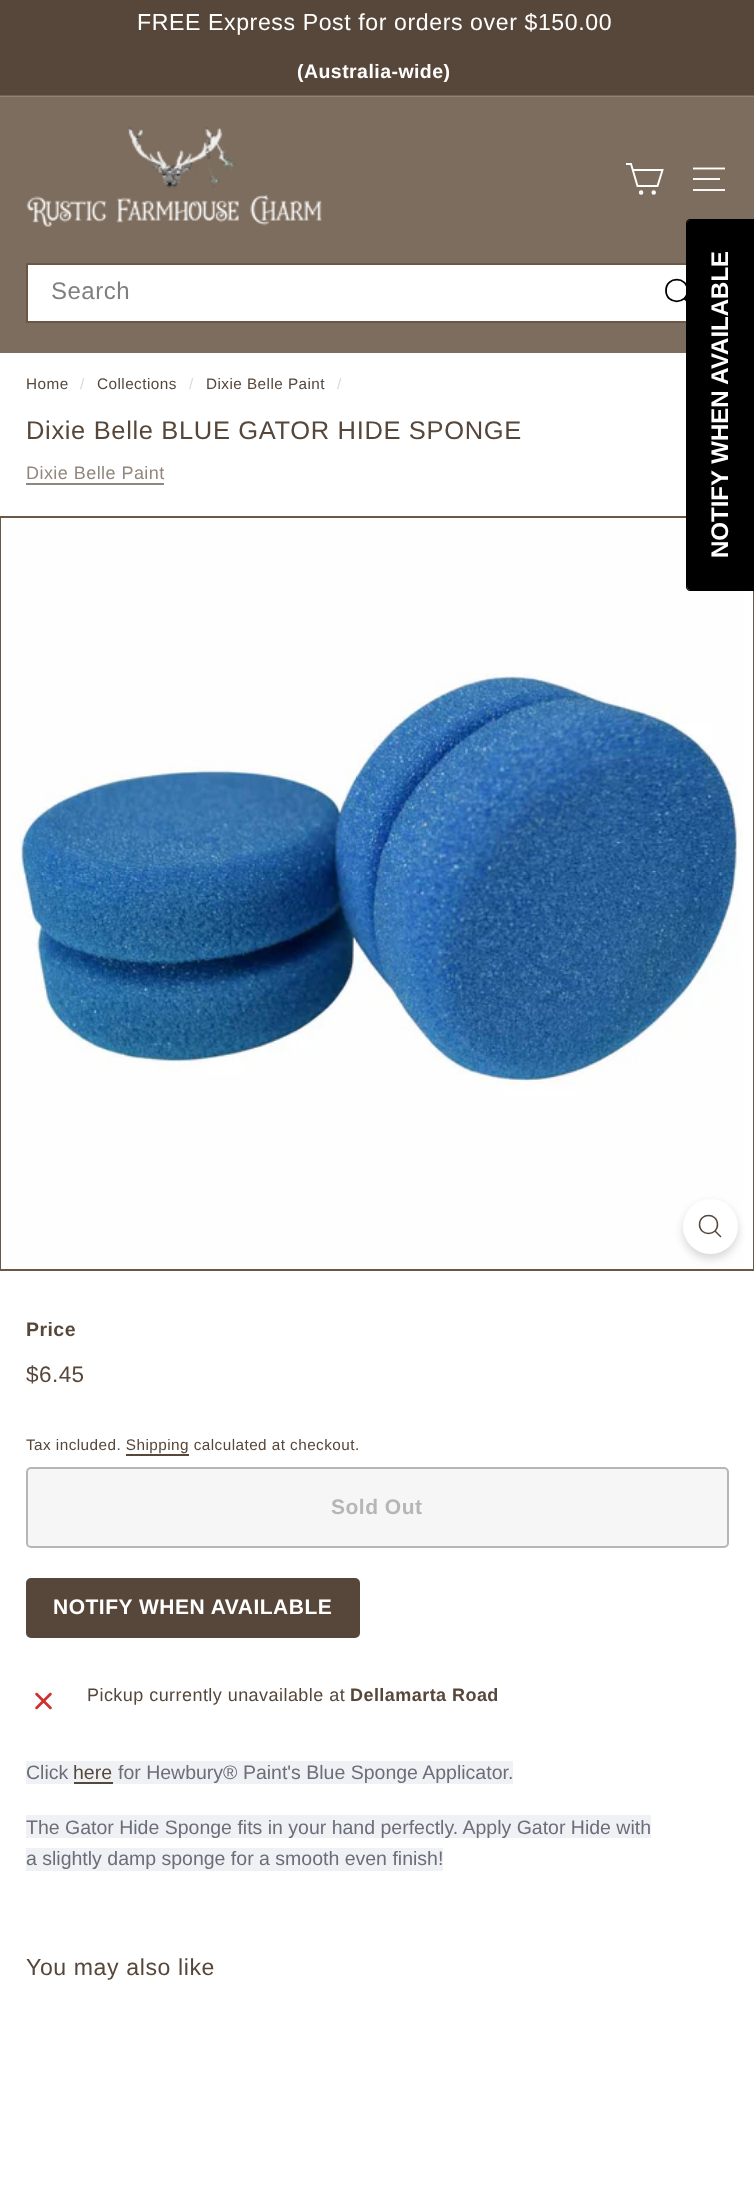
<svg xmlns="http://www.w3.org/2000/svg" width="754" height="2206">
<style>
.a{font:23.1px Liberation Sans;letter-spacing:0.6px;fill:#fff}
.b{font:bold 19.5px Liberation Sans;letter-spacing:0.45px;fill:#fff}
.c{font:24px Liberation Sans;letter-spacing:0.5px;fill:#808080}
.d{font:15.3px Liberation Sans;letter-spacing:0.45px;fill:#57473a}
.e{font:15.3px Liberation Sans;letter-spacing:0.45px;fill:#dddad8}
.f{font:25.5px Liberation Sans;letter-spacing:0.65px;fill:#57473a}
.g{font:18px Liberation Sans;letter-spacing:0.45px;fill:#92877f}
.h{font:bold 19.5px Liberation Sans;letter-spacing:0.45px;fill:#57473a}
.i{font:22.5px Liberation Sans;letter-spacing:0.45px;fill:#57473a}
.j{font:bold 21px Liberation Sans;letter-spacing:0.5px;fill:#b6b6b6}
.k{font:bold 21px Liberation Sans;letter-spacing:0.5px;fill:#fff}
.l{font:18px Liberation Sans;letter-spacing:0.45px;fill:#57473a}
.m{font:bold 18px Liberation Sans;letter-spacing:0.45px;fill:#57473a}
.n{font:19.5px Liberation Sans;fill:#6b6e79}
.o{font:19.5px Liberation Sans;fill:#57473a}
.p{font:23.1px Liberation Sans;letter-spacing:0.6px;fill:#57473a}
.q{font:bold 24px Liberation Sans;fill:#fff}
</style>
<rect width="100%" height="100%" fill="#fff"/>
<path fill="#57473a" d="M0 0h754v95H0z"/>
<path fill="#706358" d="M0 95h754v1H0z"/>
<path fill="#7d6d5e" d="M0 97h754v166H0z"/>
<path fill="#918376" d="M0 96h754v1H0z"/>
<image href="1.png" x="26" y="126" width="296" height="101"/>
<path fill="none" stroke="#fff" stroke-width="1.9" d="M633 170h29.5l-5 16h-20l-6.5-22h-5"/>
<circle fill="none" stroke="#fff" stroke-width="1.9" cx="641.1" cy="192.5" r="1.3"/>
<circle fill="#fff" stroke="#fff" stroke-width="1.9" cx="653.7" cy="192.5" r="1.3"/>
<path fill="none" stroke="#fff" stroke-width="1.9" d="M693 168.5h32"/>
<path fill="#f9f8f7" d="M693 178h27v2H693z"/>
<path fill="#f9f8f7" d="M693 189h32v2H693z"/>
<path fill="#7d6d5e" d="M0 263h686v90H0z"/>
<path fill="#fff" d="M28 265h658v56H28z"/>
<path fill="none" stroke="#6a5746" stroke-width="2" d="M27 264h701v58H27z"/>
<path fill="none" stroke="#000" stroke-width="1.8" d="M687.5 290.5c0 14.5-21.5 14.5-21.5 0c0-14.5 21.5-14.5 21.5 0zm4 15l-7-7"/>
<path fill="#92877f" d="M26 483h138v2H26z"/>
<path fill="none" stroke="#6a5746" stroke-width="2" d="M1 517h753v753H1z"/>
<image href="2.png" x="1" y="518" width="742" height="751"/>
<rect fill="#00000026" filter="blur(4.5px)" x="683" y="1203" width="55" height="56" rx="27.5"/>
<circle fill="#fff" cx="710.5" cy="1226.5" r="27.5"/>
<path fill="none" stroke="#57473a" stroke-width="1.5" d="M717.5 1224.5c0 12-18 12-18 0c0-12 18-12 18 0zm3.5 12.5l-6-6"/>
<path fill="#57473a" d="M126 1454h63v2H126z"/>
<rect fill="#f6f6f6" stroke="#b6b6b6" stroke-width="2" x="27" y="1468" width="701" height="79" rx="4"/>
<rect fill="#57473a" x="26" y="1578" width="334" height="60" rx="5"/>
<image href="3.png" x="35" y="1692" width="17" height="18"/>
<path fill="#eff1f5" d="M26 1761h48v23H26z"/>
<path fill="#eff1f5" d="M74 1761h39v21H74z"/>
<path fill="#eff1f5" d="M113 1761h400v23H113z"/>
<path fill="#57473a" d="M74 1782h39v2H74z"/>
<path fill="#eff1f5" d="M26 1815h625v23H26z"/>
<path fill="#eff1f5" d="M26 1848h417v23H26z"/>
<path fill="#000" d="M687 587v-364c0-2 2-3 3-3h64v370h-64c-1 0-3-2-3-3z"/>
<path fill="#000" fill-rule="evenodd" d="M686 587v-364c0-2 2-4 4-4h64v372h-64c-2 0-4-2-4-4zm1 0v-364c0-2 2-3 3-3h64v370h-64c-1 0-3-2-3-3z"/>
<text class="a" x="137" y="30">FREE Express Post for orders over $150.00</text>
<text class="b" x="297" y="78">(Australia-wide)</text>
<text class="c" x="51" y="299">Search</text>
<text class="d" x="26" y="389">Home</text>
<text class="e" x="80" y="389">/</text>
<text class="d" x="97" y="389">Collections</text>
<text class="e" x="189" y="389">/</text>
<text class="d" x="206" y="389">Dixie Belle Paint</text>
<text class="e" x="337" y="389">/</text>
<text class="f" x="26" y="439">Dixie Belle BLUE GATOR HIDE SPONGE</text>
<text class="g" x="26" y="479">Dixie Belle Paint</text>
<text class="h" x="26" y="1336">Price</text>
<text class="i" x="26" y="1382">$6.45</text>
<text class="d" x="26" y="1450">Tax included. Shipping calculated at checkout.</text>
<text class="j" x="331" y="1514">Sold Out</text>
<text class="k" x="53" y="1614">NOTIFY WHEN AVAILABLE</text>
<text class="l" x="87" y="1701">Pickup currently unavailable at</text>
<text class="m" x="350" y="1701">Dellamarta Road</text>
<text class="n" x="26" y="1779">Click</text>
<text class="o" x="73" y="1779">here</text>
<text class="n" x="118" y="1779">for Hewbury® Paint's Blue Sponge Applicator.</text>
<text class="n" x="26" y="1834">The Gator Hide Sponge fits in your hand perfectly. Apply Gator Hide with</text>
<text class="n" x="26" y="1865">a slightly damp sponge for a smooth even finish!</text>
<text class="p" x="26" y="1975">You may also like</text>
<text class="q" x="728" y="558" transform="rotate(-90 728 558)">NOTIFY WHEN AVAILABLE</text>
</svg>
